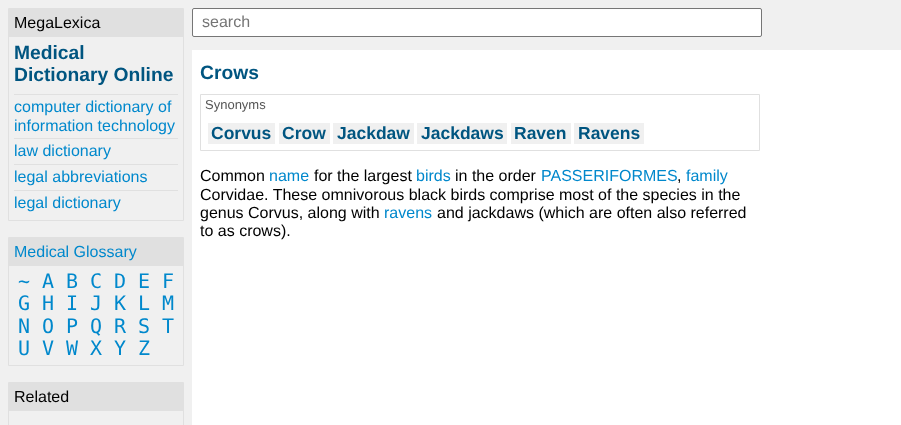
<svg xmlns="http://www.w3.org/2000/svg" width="901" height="425">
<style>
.a{font:16px Liberation Sans;fill:#000}
.b{font:bold 19.25px Liberation Sans;fill:#005580}
.c{font:16px Liberation Sans;fill:#08c}
.d{font:20px DejaVu Sans Mono;fill:#08c}
.e{font:16px Liberation Sans;fill:#757575}
.f{font:13px Liberation Sans;fill:#555}
.g{font:bold 17.5px Liberation Sans;fill:#005580}
</style>
<rect width="100%" height="100%" fill="#fff"/>
<path fill="#f0f0f0" d="M0 0h192v425H0z"/>
<path fill="none" stroke="#e0e0e0" d="M8.5 8.5h175v212H8.5z"/>
<path fill="#e0e0e0" d="M9 9h174v28H9z"/>
<path fill="#e0e0e0" d="M14 94h164v1H14z"/>
<path fill="#e0e0e0" d="M14 138h164v1H14z"/>
<path fill="#e0e0e0" d="M14 164h164v1H14z"/>
<path fill="#e0e0e0" d="M14 190h164v1H14z"/>
<path fill="none" stroke="#e0e0e0" d="M8.5 237.5h175v128H8.5z"/>
<path fill="#e0e0e0" d="M9 238h174v28H9z"/>
<path fill="none" stroke="#e0e0e0" d="M8.5 382.5h175v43H8.5z"/>
<path fill="#e0e0e0" d="M9 383h174v28H9z"/>
<path fill="#f0f0f0" d="M192 0h709v50H192z"/>
<rect fill="#fff" stroke="#767676" x="192.5" y="8.5" width="569" height="28" rx="1.5"/>
<path fill="none" stroke="#e0e0e0" d="M200.5 94.5h559v56H200.5z"/>
<path fill="#f0f0f0" d="M208 123h67v21H208z"/>
<path fill="#f0f0f0" d="M279 123h51v21H279z"/>
<path fill="#f0f0f0" d="M333 123h81v21H333z"/>
<path fill="#f0f0f0" d="M417 123h90v21H417z"/>
<path fill="#f0f0f0" d="M511 123h60v21H511z"/>
<path fill="#f0f0f0" d="M574 123h70v21H574z"/>
<text class="a" x="14" y="28">MegaLexica</text>
<text class="b" x="14" y="59">Medical</text>
<text class="b" x="14" y="81">Dictionary Online</text>
<text class="c" x="14" y="112">computer dictionary of</text>
<text class="c" x="14" y="131">information technology</text>
<text class="c" x="14" y="156">law dictionary</text>
<text class="c" x="14" y="182">legal abbreviations</text>
<text class="c" x="14" y="208">legal dictionary</text>
<text class="c" x="14" y="257">Medical Glossary</text>
<text class="d" x="18" y="288">~</text>
<text class="d" x="42" y="288">A</text>
<text class="d" x="66" y="288">B</text>
<text class="d" x="90" y="288">C</text>
<text class="d" x="114" y="288">D</text>
<text class="d" x="138" y="288">E</text>
<text class="d" x="162" y="288">F</text>
<text class="d" x="18" y="310">G</text>
<text class="d" x="42" y="310">H</text>
<text class="d" x="66" y="310">I</text>
<text class="d" x="90" y="310">J</text>
<text class="d" x="114" y="310">K</text>
<text class="d" x="138" y="310">L</text>
<text class="d" x="162" y="310">M</text>
<text class="d" x="18" y="333">N</text>
<text class="d" x="42" y="333">O</text>
<text class="d" x="66" y="333">P</text>
<text class="d" x="90" y="333">Q</text>
<text class="d" x="114" y="333">R</text>
<text class="d" x="138" y="333">S</text>
<text class="d" x="162" y="333">T</text>
<text class="d" x="18" y="355">U</text>
<text class="d" x="42" y="355">V</text>
<text class="d" x="66" y="355">W</text>
<text class="d" x="90" y="355">X</text>
<text class="d" x="114" y="355">Y</text>
<text class="d" x="138" y="355">Z</text>
<text class="a" x="14" y="402">Related</text>
<text class="e" x="202" y="27">search</text>
<text class="b" x="200" y="79">Crows</text>
<text class="f" x="205" y="109">Synonyms</text>
<text class="g" x="211" y="139">Corvus</text>
<text class="g" x="282" y="139">Crow</text>
<text class="g" x="337" y="139">Jackdaw</text>
<text class="g" x="421" y="139">Jackdaws</text>
<text class="g" x="514" y="139">Raven</text>
<text class="g" x="578" y="139">Ravens</text>
<text class="a" x="200" y="181">Common</text>
<text class="c" x="269" y="181">name</text>
<text class="a" x="314" y="181">for the largest</text>
<text class="c" x="416" y="181">birds</text>
<text class="a" x="455" y="181">in the order</text>
<text class="c" x="541" y="181">PASSERIFORMES</text>
<text class="a" x="677" y="181">,</text>
<text class="c" x="686" y="181">family</text>
<text class="a" x="200" y="200">Corvidae. These omnivorous black birds comprise most of the species in the</text>
<text class="a" x="200" y="218">genus Corvus, along with</text>
<text class="c" x="384" y="218">ravens</text>
<text class="a" x="437" y="218">and jackdaws (which are often also referred</text>
<text class="a" x="200" y="236">to as crows).</text>
</svg>
